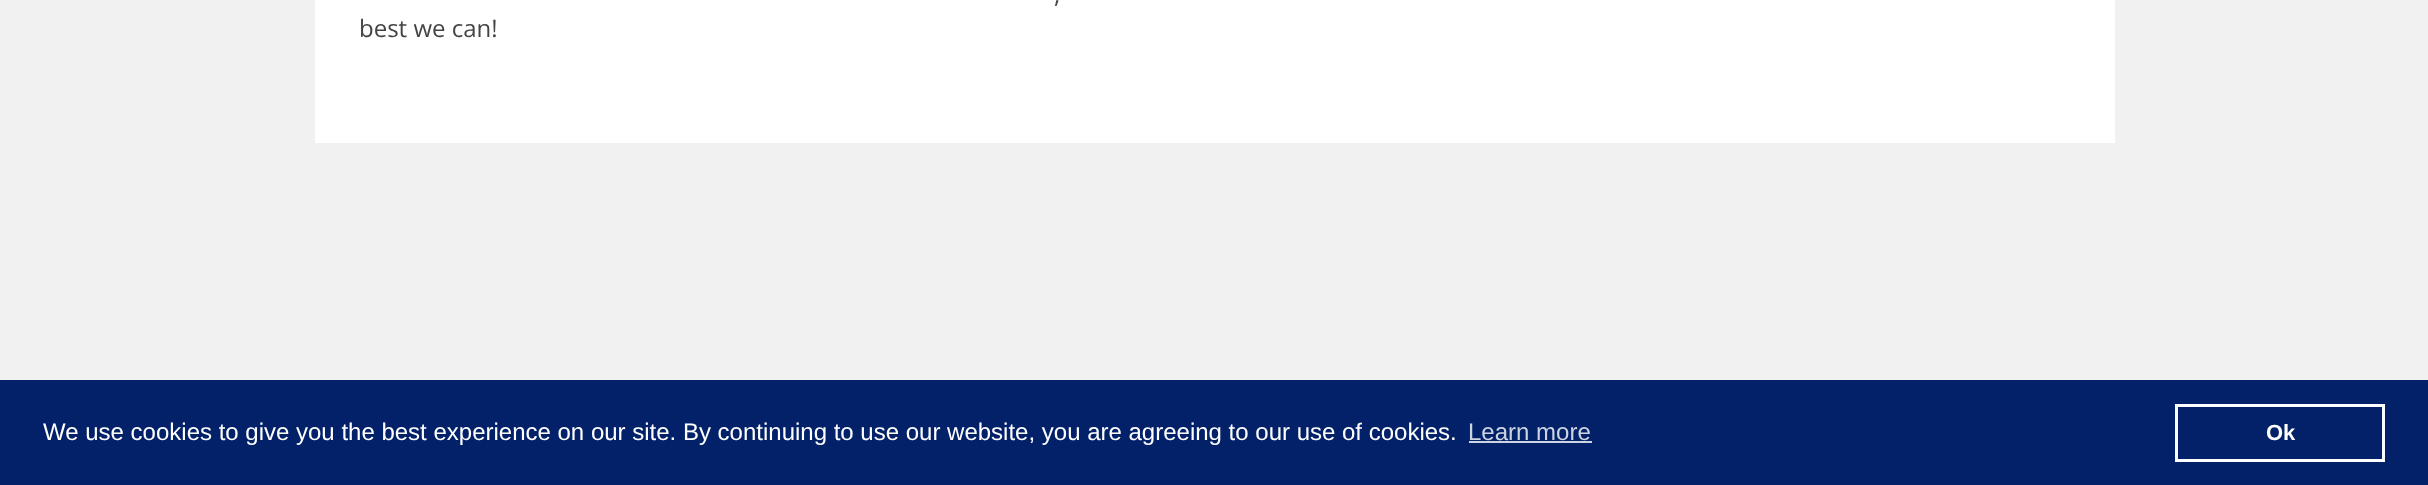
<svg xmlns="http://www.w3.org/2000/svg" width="2428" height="485">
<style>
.a{font:24px Open Sans;fill:#444}
.b{font:24px Liberation Sans;fill:#fff}
.c{font:24px Liberation Sans;fill:#ccd3e1}
.d{font:bold 22px Liberation Sans;fill:#fff}
</style>
<rect width="100%" height="100%" fill="#f1f1f1"/>
<path fill="#fff" d="M315 0h1800v143H315z"/>
<path fill="#022169" d="M0 380h2428v105H0z"/>
<path fill="#ccd3e1" d="M1469 441h123v2H1469z"/>
<path fill="none" stroke="#fff" stroke-width="3" d="M2176.5 405.5h207v55H2176.5z"/>
<text class="a" x="1054" y="3">,</text>
<text class="a" x="359" y="37">best we can!</text>
<text class="b" x="43" y="440">We use cookies to give you the best experience on our site. By continuing to use our website, you are agreeing to our use of cookies.</text>
<text class="c" x="1468" y="440">Learn more</text>
<text class="d" x="2266" y="440">Ok</text>
</svg>
